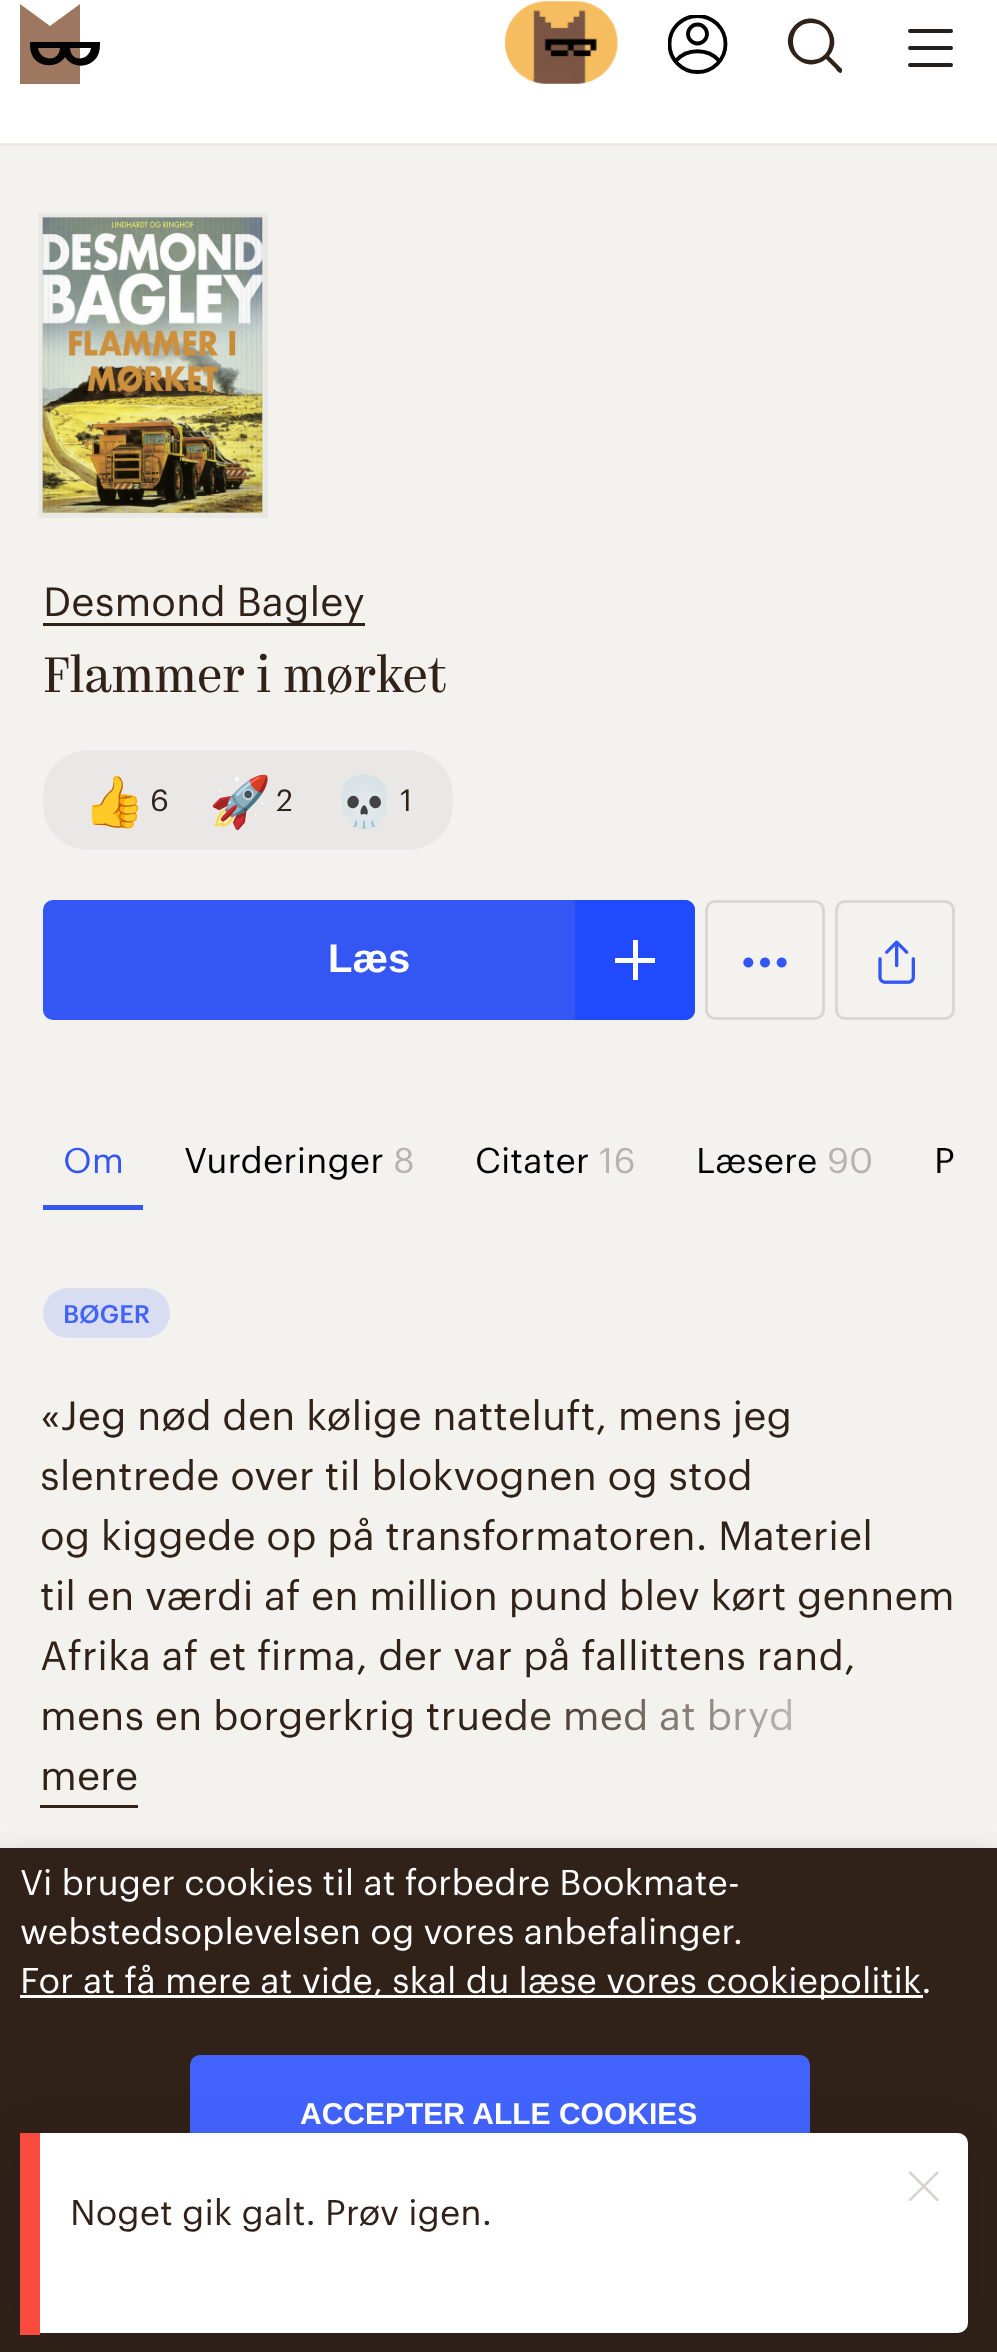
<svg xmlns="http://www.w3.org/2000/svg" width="997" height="2352">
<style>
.a{font:40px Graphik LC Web;fill:#302119}
.b{font:50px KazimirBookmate;fill:#302119}
.c{font:50px Noto Color Emoji;fill:#302119}
.d{font:30px Graphik LC Web;fill:#302119}
.e{font:bold 40px Liberation Sans;fill:#fff}
.f{font:35px Graphik LC Web;fill:#3456f3}
.g{font:35px Graphik LC Web;fill:#000}
.h{font:35px Graphik LC Web;fill:#b8b3af}
.i{font:500 25px Graphik LC Web;fill:#4264fd}
.j{font:35px Graphik LC Web;fill:#fff}
.k{font:bold 30px Liberation Sans;fill:#fff}
.l{font:35px Graphik LC Web;fill:#302119}
</style>
<defs>
<clipPath id="clip1"><path d="M668 15h60v60H668z"/></clipPath>
<linearGradient id="g1" gradientUnits="userSpaceOnUse" x1="500" y1="1718" x2="958" y2="1718"><stop offset="0" stop-color="#f4f2ef" stop-opacity="0"/><stop offset="0.9" stop-color="#f4f2ef"/></linearGradient>
</defs>
<rect width="100%" height="100%" fill="#f4f2ef"/>
<path fill="#e9e4df" d="M0 145h997v1H0z"/>
<path fill="#fff" d="M0 0h997v143H0z"/>
<path fill="#eeebe7" d="M0 143h997v2H0z"/>
<path fill="#9d7760" d="M80 4l-30 22l-30-22v80h60z"/>
<path fill="#020302" d="M70 48h21c-2 13-20 15-21 0zm-32 0h22c-1 15-20 13-22 0zm-8-6c0 5 0 10 3 15c7 11 25 11 32 0c7 11 24 12 32 0c3-5 3-10 3-15z"/>
<image href="1.png" x="505" y="1" width="113" height="83"/>
<g clip-path="url(#clip1)">
<circle fill="none" stroke="#000" stroke-width="3.8" cx="697.5" cy="44" r="28"/>
</g>
<circle fill="none" stroke="#000" stroke-width="3.8" cx="697.5" cy="34" r="9.5"/>
<path fill="none" stroke="#000" stroke-width="3.8" d="M675.5 61c11.5-13 32.5-13 44 0"/>
<path fill="#302119" d="M842 69l-13-13c18-21-13-51-34-31c-21 21 9 52 31 34l9 9c0 0 6 9 7 3zm-31-9c-24 0-24-37 0-37c25 0 25 37 0 37z"/>
<rect fill="#22201f" x="908" y="29" width="45" height="4" rx="2"/>
<rect fill="#22201f" x="908" y="46" width="45" height="4" rx="2"/>
<rect fill="#22201f" x="908" y="63" width="45" height="4" rx="2"/>
<image href="2.png" x="42" y="217" width="221" height="296"/>
<image href="3.png" x="42" y="217" width="221" height="296"/>
<path fill="none" stroke="#0000000a" stroke-width="5" d="M40.5 215.5h225v300H40.5z"/>
<path fill="#302119" d="M43 623h322v3H43z"/>
<rect fill="#eae8e6" x="43" y="750" width="410" height="100" rx="45"/>
<rect fill="#3456f3" x="43" y="900" width="652" height="120" rx="10"/>
<path fill="#224afd" d="M575 900h110c5.5 0 10 4.5 10 10v100c0 5.5-4.5 10-10 10h-110z"/>
<path fill="#fff" d="M615 958h40v5H615z"/>
<path fill="#fff" d="M633 940h5v40H633z"/>
<rect fill="none" stroke="#ddd6cf" stroke-width="3" x="706.5" y="901.5" width="117" height="117" rx="8.5"/>
<image href="4.png" x="743" y="957" width="44" height="11"/>
<rect fill="none" stroke="#ddd6cf" stroke-width="3" x="836.5" y="901.5" width="117" height="117" rx="8.5"/>
<image href="5.png" x="878" y="940" width="37" height="44"/>
<path fill="#3456f3" d="M43 1205h100v5H43z"/>
<rect fill="#d9ddf1" x="43" y="1288" width="127" height="50" rx="25"/>
<path fill="#302119" d="M40 1805h98v3H40z"/>
<path fill="#0000001a" filter="blur(12.5px)" d="M0 1850h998v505H0z"/>
<path fill="#302119" d="M0 1848h997v504H0z"/>
<path fill="#fff" d="M20 1995h903v3H20z"/>
<rect fill="#4264fd" x="190" y="2055" width="620" height="120" rx="10"/>
<rect fill="#00000012" filter="blur(25px)" x="20" y="2138" width="948" height="200" rx="10"/>
<rect fill="#fff" x="20" y="2133" width="948" height="200" rx="10"/>
<path fill="#fa4c3e" d="M20 2133h20v202H20z"/>
<image href="6.png" x="908" y="2171" width="31" height="30"/>
<text class="a" x="43" y="616">Desmond Bagley</text>
<text class="b" x="43" y="692">Flammer i mørket</text>
<text class="c" x="83" y="819">👍</text>
<text class="d" x="150" y="811">6</text>
<text class="c" x="209" y="819">🚀 💀</text>
<text class="d" x="276" y="811">2</text>
<text class="d" x="400" y="811">1</text>
<text class="e" x="328" y="972">Læs</text>
<text class="f" x="63" y="1173">Om</text>
<text class="g" x="184" y="1173">Vurderinger</text>
<text class="h" x="393" y="1173">8</text>
<text class="g" x="475" y="1173">Citater</text>
<text class="h" x="599" y="1173">16</text>
<text class="g" x="696" y="1173">Læsere</text>
<text class="h" x="827" y="1173">90</text>
<text class="g" x="934" y="1173">P</text>
<text class="i" x="63" y="1323">BØGER</text>
<text class="a" x="40" y="1430">«Jeg nød den kølige natteluft, mens jeg</text>
<text class="a" x="40" y="1490">slentrede over til blokvognen og stod</text>
<text class="a" x="40" y="1550">og kiggede op på transformatoren. Materiel</text>
<text class="a" x="40" y="1610">til en værdi af en million pund blev kørt gennem</text>
<text class="a" x="40" y="1670">Afrika af et firma, der var på fallittens rand,</text>
<text class="a" x="40" y="1730">mens en borgerkrig truede med at bryd</text>
<path fill="url(#g1)" d="M509 1699h284v39H509z"/>
<text class="a" x="40" y="1790">mere</text>
<text class="j" x="20" y="1895">Vi bruger cookies til at forbedre Bookmate-</text>
<text class="j" x="20" y="1944">webstedsoplevelsen og vores anbefalinger.</text>
<text class="j" x="20" y="1993">For at få mere at vide, skal du læse vores cookiepolitik.</text>
<text class="k" x="300" y="2124">ACCEPTER ALLE COOKIES</text>
<text class="l" x="70" y="2225">Noget gik galt. Prøv igen.</text>
</svg>
